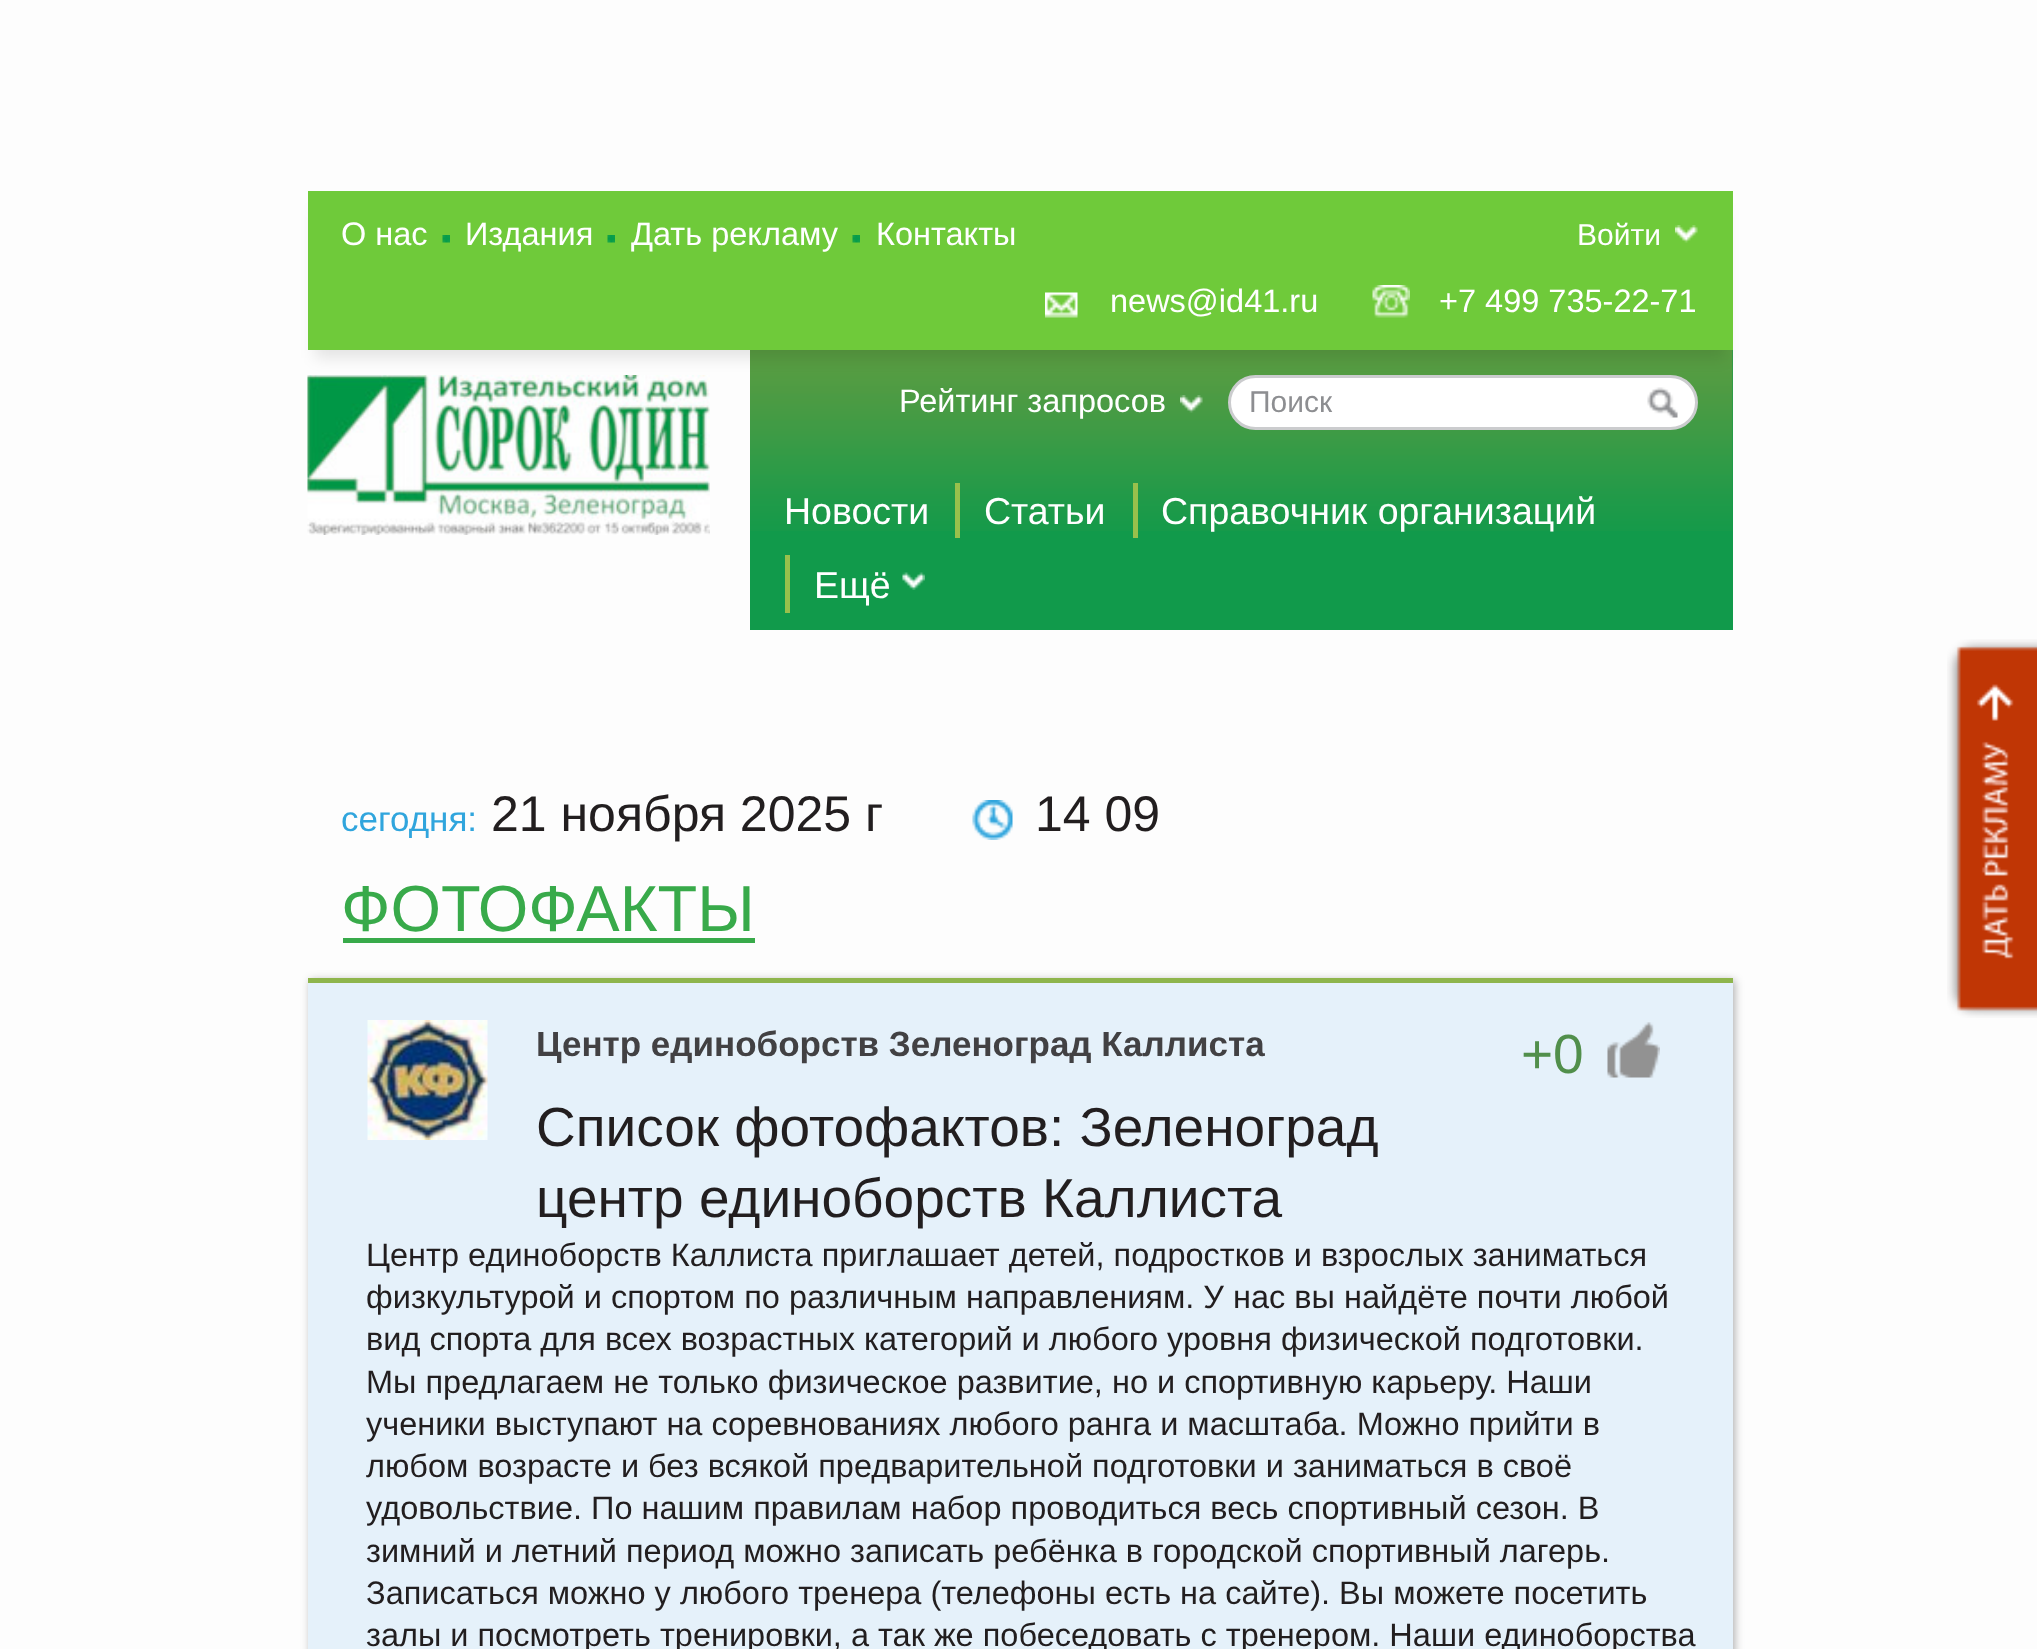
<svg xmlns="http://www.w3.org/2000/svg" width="2037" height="1649">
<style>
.a{font:32.5px Liberation Sans;fill:#fff}
.b{font:30px Liberation Sans;fill:#fff}
.c{font:30px Liberation Sans;fill:#8d8e91}
.d{font:37.5px Liberation Sans;fill:#fff}
.e{font:35px Liberation Sans;fill:#30a5dd}
.f{font:50px Liberation Sans;fill:#221e1f}
.g{font:65px Liberation Sans;fill:#38aa4a}
.h{font:bold 35px Liberation Sans;fill:#424143}
.i{font:55px Liberation Sans;fill:#518f4b}
.j{font:55px Liberation Sans;fill:#221e1f}
.k{font:32.5px Liberation Sans;fill:#221e1f}
</style>
<rect width="100%" height="100%" fill="#fdfdfd"/>
<path fill="#119a4b" d="M750 350h983v280H750z"/>
<image href="5.png" x="750" y="350" width="983" height="181"/>
<image href="6.png" x="307" y="375" width="403" height="160"/>
<rect fill="#fff" stroke="#cbccce" stroke-width="3" x="1229.5" y="376.5" width="467" height="52" rx="26"/>
<path fill="#0000001a" filter="blur(7.5px)" d="M315 210h1410v148H315z"/>
<path fill="#6fca3a" d="M308 191h1425v159H308z"/>
<image href="1.png" x="442" y="235" width="8" height="8"/>
<image href="1.png" x="607" y="235" width="8" height="8"/>
<image href="1.png" x="852" y="235" width="8" height="8"/>
<image href="2.png" x="1675" y="225" width="23" height="18"/>
<image href="3.png" x="1045" y="292" width="33" height="26"/>
<image href="4.png" x="1372" y="285" width="38" height="33"/>
<image href="7.png" x="1180" y="395" width="23" height="18"/>
<image href="8.png" x="1647" y="387" width="31" height="31"/>
<path fill="#99c04c" d="M955 483h5v55H955z"/>
<path fill="#99c04c" d="M1133 483h5v55H1133z"/>
<path fill="#99c04c" d="M785 555h5v58H785z"/>
<image href="9.png" x="902" y="572" width="23" height="18"/>
<image href="10.png" x="972" y="800" width="41" height="40"/>
<path fill="#38aa4a" d="M343 938h412v5H343z"/>
<path fill="#0000004d" filter="blur(4px)" d="M310 980h1425v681H310z"/>
<path fill="#8eb54c" d="M308 978h1425v5H308z"/>
<path fill="#e5f1fa" d="M308 983h1425v666H308z"/>
<image href="11.png" x="367" y="1020" width="121" height="120"/>
<image href="12.png" x="1607" y="1022" width="53" height="56"/>
<image href="13.png" x="1947" y="639" width="90" height="379"/>
<text class="a" x="341" y="245">О нас</text>
<text class="a" x="465" y="245">Издания</text>
<text class="a" x="631" y="245">Дать рекламу</text>
<text class="a" x="876" y="245">Контакты</text>
<text class="b" x="1577" y="245">Войти</text>
<text class="a" x="1110" y="312">news@id41.ru</text>
<text class="a" x="1439" y="312">+7 499 735-22-71</text>
<text class="a" x="899" y="412">Рейтинг запросов</text>
<text class="c" x="1249" y="412">Поиск</text>
<text class="d" x="784" y="524">Новости</text>
<text class="d" x="984" y="524">Статьи</text>
<text class="d" x="1161" y="524">Справочник организаций</text>
<text class="d" x="814" y="598">Ещё</text>
<text class="e" x="341" y="831">сегодня:</text>
<text class="f" x="491" y="831">21 ноября 2025 г</text>
<text class="f" x="1035" y="831">14 09</text>
<text class="g" x="341" y="931">ФОТОФАКТЫ</text>
<text class="h" x="536" y="1056">Центр единоборств Зеленоград Каллиста</text>
<text class="i" x="1521" y="1073">+0</text>
<text class="j" x="536" y="1146">Список фотофактов: Зеленоград</text>
<text class="j" x="536" y="1217">центр единоборств Каллиста</text>
<text class="k" x="366" y="1266">Центр единоборств Каллиста приглашает детей, подростков и взрослых заниматься</text>
<text class="k" x="366" y="1308">физкультурой и спортом по различным направлениям. У нас вы найдёте почти любой</text>
<text class="k" x="366" y="1350">вид спорта для всех возрастных категорий и любого уровня физической подготовки.</text>
<text class="k" x="366" y="1393">Мы предлагаем не только физическое развитие, но и спортивную карьеру. Наши</text>
<text class="k" x="366" y="1435">ученики выступают на соревнованиях любого ранга и масштаба. Можно прийти в</text>
<text class="k" x="366" y="1477">любом возрасте и без всякой предварительной подготовки и заниматься в своё</text>
<text class="k" x="366" y="1519">удовольствие. По нашим правилам набор проводиться весь спортивный сезон. В</text>
<text class="k" x="366" y="1562">зимний и летний период можно записать ребёнка в городской спортивный лагерь.</text>
<text class="k" x="366" y="1604">Записаться можно у любого тренера (телефоны есть на сайте). Вы можете посетить</text>
<text class="k" x="366" y="1646">залы и посмотреть тренировки, а так же побеседовать с тренером. Наши единоборства</text>
</svg>
